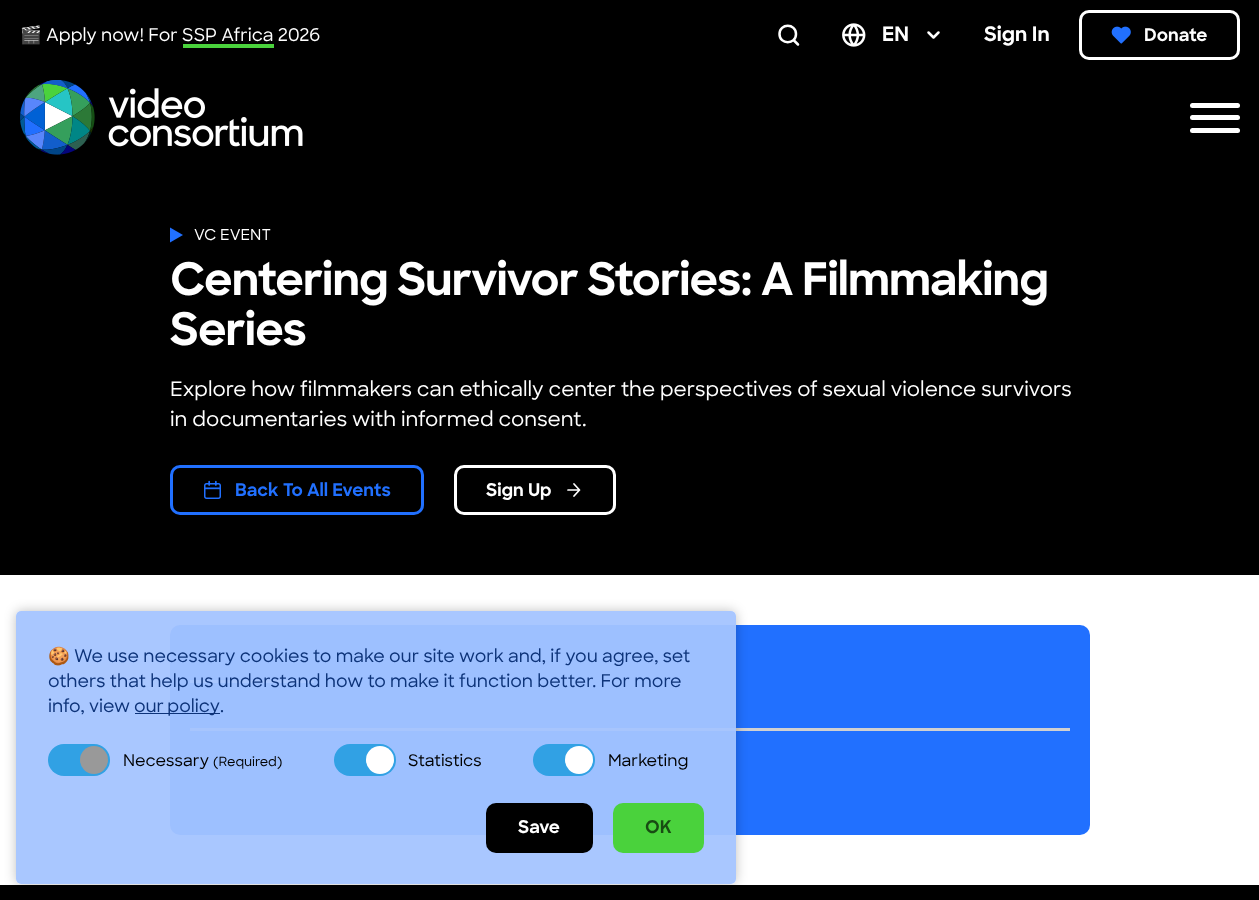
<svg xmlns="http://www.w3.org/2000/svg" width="1259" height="900">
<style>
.a{font:17.5px Noto Color Emoji;fill:#fff}
.b{font:500 17.5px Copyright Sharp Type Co;fill:#fff}
.c{font:bold 20px Copyright Sharp Type Co;fill:#fff}
.d{font:bold 17.5px Copyright Sharp Type Co;fill:#fff}
.e{font:500 15px Copyright Sharp Type Co;fill:#fff}
.f{font:bold 45px Copyright Sharp Type Co;letter-spacing:-0.9px;fill:#fff}
.g{font:500 20px Copyright Sharp Type Co;fill:#fff}
.h{font:bold 17.5px Copyright Sharp Type Co;fill:#2170ff}
.i{font:17.5px Noto Color Emoji;fill:#0d3379}
.j{font:500 17.5px Copyright Sharp Type Co;fill:#0d3379}
.k{font:500 16px Copyright Sharp Type Co;fill:#000}
.l{font:500 12.75px Copyright Sharp Type Co;fill:#000}
.m{font:bold 17.5px Copyright Sharp Type Co;fill:#184c13}
</style>
<defs>
<clipPath id="clip1"><path d="M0 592h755v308h-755zm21 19h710c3 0 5 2 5 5v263c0 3-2 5-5 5h-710c-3 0-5-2-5-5v-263c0-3 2-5 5-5z" clip-rule="evenodd"/></clipPath>
</defs>
<rect width="100%" height="100%" fill="#fff"/>
<path fill="#000" d="M0 0h1259v70H0z"/>
<path fill="none" stroke="#fff" stroke-width="2.5" stroke-linecap="round" stroke-linejoin="round" d="M798 44.5l-4.5-4.5m2.5-6c0 11-16.5 11-16.5 0c0-11 16.5-11 16.5 0z"/>
<image href="1.png" x="842" y="23" width="24" height="24"/>
<path fill="none" stroke="#fff" stroke-width="2.5" stroke-linecap="round" stroke-linejoin="round" d="M928.5 32.5l5 5l5-5"/>
<rect fill="none" stroke="#fff" stroke-width="3" x="1080.5" y="11.5" width="158" height="47" rx="8.5"/>
<image href="2.png" x="1111" y="26" width="20" height="18"/>
<path fill="#000" d="M0 70h1259v505H0z"/>
<image href="3.png" x="20" y="80" width="283" height="75"/>
<rect fill="#fff" x="1190" y="115" width="50" height="5" rx="2.5"/>
<rect fill="#fff" x="1190" y="103" width="50" height="5" rx="2.5"/>
<rect fill="#fff" x="1190" y="128" width="50" height="5" rx="2.5"/>
<path fill="#2170ff" d="M170 242.5v-15l13 7.5z"/>
<rect fill="none" stroke="#2170ff" stroke-width="3" x="171.5" y="466.5" width="251" height="47" rx="8.5"/>
<image href="4.png" x="204" y="480" width="17" height="19"/>
<rect fill="none" stroke="#fff" stroke-width="3" x="455.5" y="466.5" width="159" height="47" rx="8.5"/>
<path fill="none" stroke="#fff" stroke-width="1.7" stroke-linecap="round" stroke-linejoin="round" d="M568 490h11.5m-5.5-6l5.5 6l-5.5 6"/>
<rect fill="#2170ff" x="170" y="625" width="920" height="210" rx="10"/>
<path fill="#fff" d="M190 680h124v3H190z"/>
<path fill="#d1d1d1" d="M190 728h880v3H190z"/>
<path fill="#000" d="M0 885h1259v15H0z"/>
<g clip-path="url(#clip1)">
<rect fill="#00000040" filter="blur(6px)" x="16" y="611" width="720" height="273" rx="5"/>
</g>
<rect fill="#a4c4fff2" x="16" y="611" width="720" height="273" rx="5"/>
<path fill="#0d3379" d="M135 713h85v1H135z"/>
<rect fill="#31a1e4" x="48" y="744" width="62" height="32" rx="16"/>
<circle fill="#999" cx="94" cy="760" r="14"/>
<rect fill="#31a1e4" x="334" y="744" width="62" height="32" rx="16"/>
<circle fill="#fff" cx="380" cy="760" r="14"/>
<rect fill="#31a1e4" x="533" y="744" width="62" height="32" rx="16"/>
<circle fill="#fff" cx="579" cy="760" r="14"/>
<rect fill="#000" x="486" y="803" width="107" height="50" rx="10"/>
<rect fill="#4ad23c" x="613" y="803" width="91" height="50" rx="10"/>
<text class="a" x="20" y="41">🎬</text>
<text class="b" x="46" y="41">Apply now! For SSP Africa 2026</text>
<path fill="#4ad23c" d="M183 44h91v4H183z"/>
<text class="c" x="882" y="41">EN</text>
<text class="c" x="984" y="41">Sign In</text>
<text class="d" x="1144" y="41">Donate</text>
<text class="e" x="194" y="240">VC EVENT</text>
<text class="f" x="170" y="295">Centering Survivor Stories: A Filmmaking</text>
<text class="f" x="170" y="345">Series</text>
<text class="g" x="170" y="396">Explore how filmmakers can ethically center the perspectives of sexual violence survivors</text>
<text class="g" x="170" y="426">in documentaries with informed consent.</text>
<text class="h" x="235" y="496">Back To All Events</text>
<text class="d" x="486" y="496">Sign Up</text>
<text class="i" x="48" y="662">🍪</text>
<text class="j" x="74" y="662">We use necessary cookies to make our site work and, if you agree, set</text>
<text class="j" x="48" y="687">others that help us understand how to make it function better. For more</text>
<text class="j" x="48" y="712">info, view</text>
<text class="j" x="134" y="712" word-spacing="-1">our policy</text>
<text class="j" x="220" y="712">.</text>
<text class="k" x="123" y="766">Necessary</text>
<text class="l" x="213" y="766">(Required)</text>
<text class="k" x="408" y="766">Statistics</text>
<text class="k" x="608" y="766">Marketing</text>
<text class="d" x="518" y="833">Save</text>
<text class="m" x="645" y="833">OK</text>
</svg>
